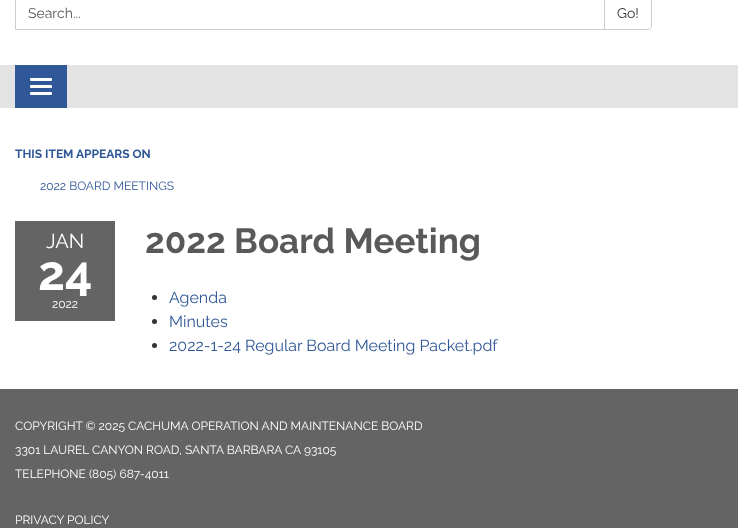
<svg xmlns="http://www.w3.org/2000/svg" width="738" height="528">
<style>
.a{font:14px Raleway;fill:#58595b}
.b{font:14px Raleway;fill:#333}
.c{font:bold 12px Raleway;fill:#305797}
.d{font:12px Raleway;fill:#305797}
.e{font:20px Raleway;fill:#fff}
.f{font:bold 48px Raleway;fill:#fff}
.g{font:12px Raleway;fill:#fff}
.h{font:bold 35px Raleway;fill:#58595b}
.i{font:16px Raleway;fill:#305797}
</style>
<rect width="100%" height="100%" fill="#646464"/>
<path fill="#fff" d="M0 0h738v65H0z"/>
<path fill="none" stroke="#ccc" d="M15.5 -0.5h589v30H15.5z"/>
<path fill="#fff" stroke="#ccc" d="M604.5-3.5h43.5c2 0 3.5 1.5 3.5 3.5v26c0 2-1.5 3.5-3.5 3.5h-43.5z"/>
<path fill="#e3e3e3" d="M0 65h738v43H0z"/>
<path fill="#305797" d="M15 65h52v43H15z"/>
<rect fill="#fff" x="30" y="78" width="22" height="3" rx="1"/>
<rect fill="#fff" x="30" y="85" width="22" height="3" rx="1"/>
<rect fill="#fff" x="30" y="92" width="22" height="3" rx="1"/>
<path fill="#fff" d="M0 108h738v281H0z"/>
<path fill="#646464" d="M15 221h100v100H15z"/>
<circle fill="#333" cx="154.5" cy="297.5" r="2.5"/>
<circle fill="#333" cx="154.5" cy="321.5" r="2.5"/>
<circle fill="#333" cx="154.5" cy="345.5" r="2.5"/>
<text class="a" x="28" y="18">Search...</text>
<text class="b" x="617" y="18">Go!</text>
<text class="c" x="15" y="158">THIS ITEM APPEARS ON</text>
<text class="d" x="40" y="190">2022 BOARD MEETINGS</text>
<text class="e" x="46" y="248">JAN</text>
<text class="f" x="38" y="290">24</text>
<text class="g" x="52" y="308">2022</text>
<text class="h" x="145" y="253">2022 Board Meeting</text>
<text class="i" x="169" y="303">Agenda</text>
<text class="i" x="169" y="327">Minutes</text>
<text class="i" x="169" y="351">2022-1-24 Regular Board Meeting Packet.pdf</text>
<text class="g" x="15" y="430">COPYRIGHT © 2025 CACHUMA OPERATION AND MAINTENANCE BOARD</text>
<text class="g" x="15" y="454">3301 LAUREL CANYON ROAD, SANTA BARBARA CA 93105</text>
<text class="g" x="15" y="478">TELEPHONE (805) 687-4011</text>
<text class="g" x="15" y="524">PRIVACY POLICY</text>
</svg>
